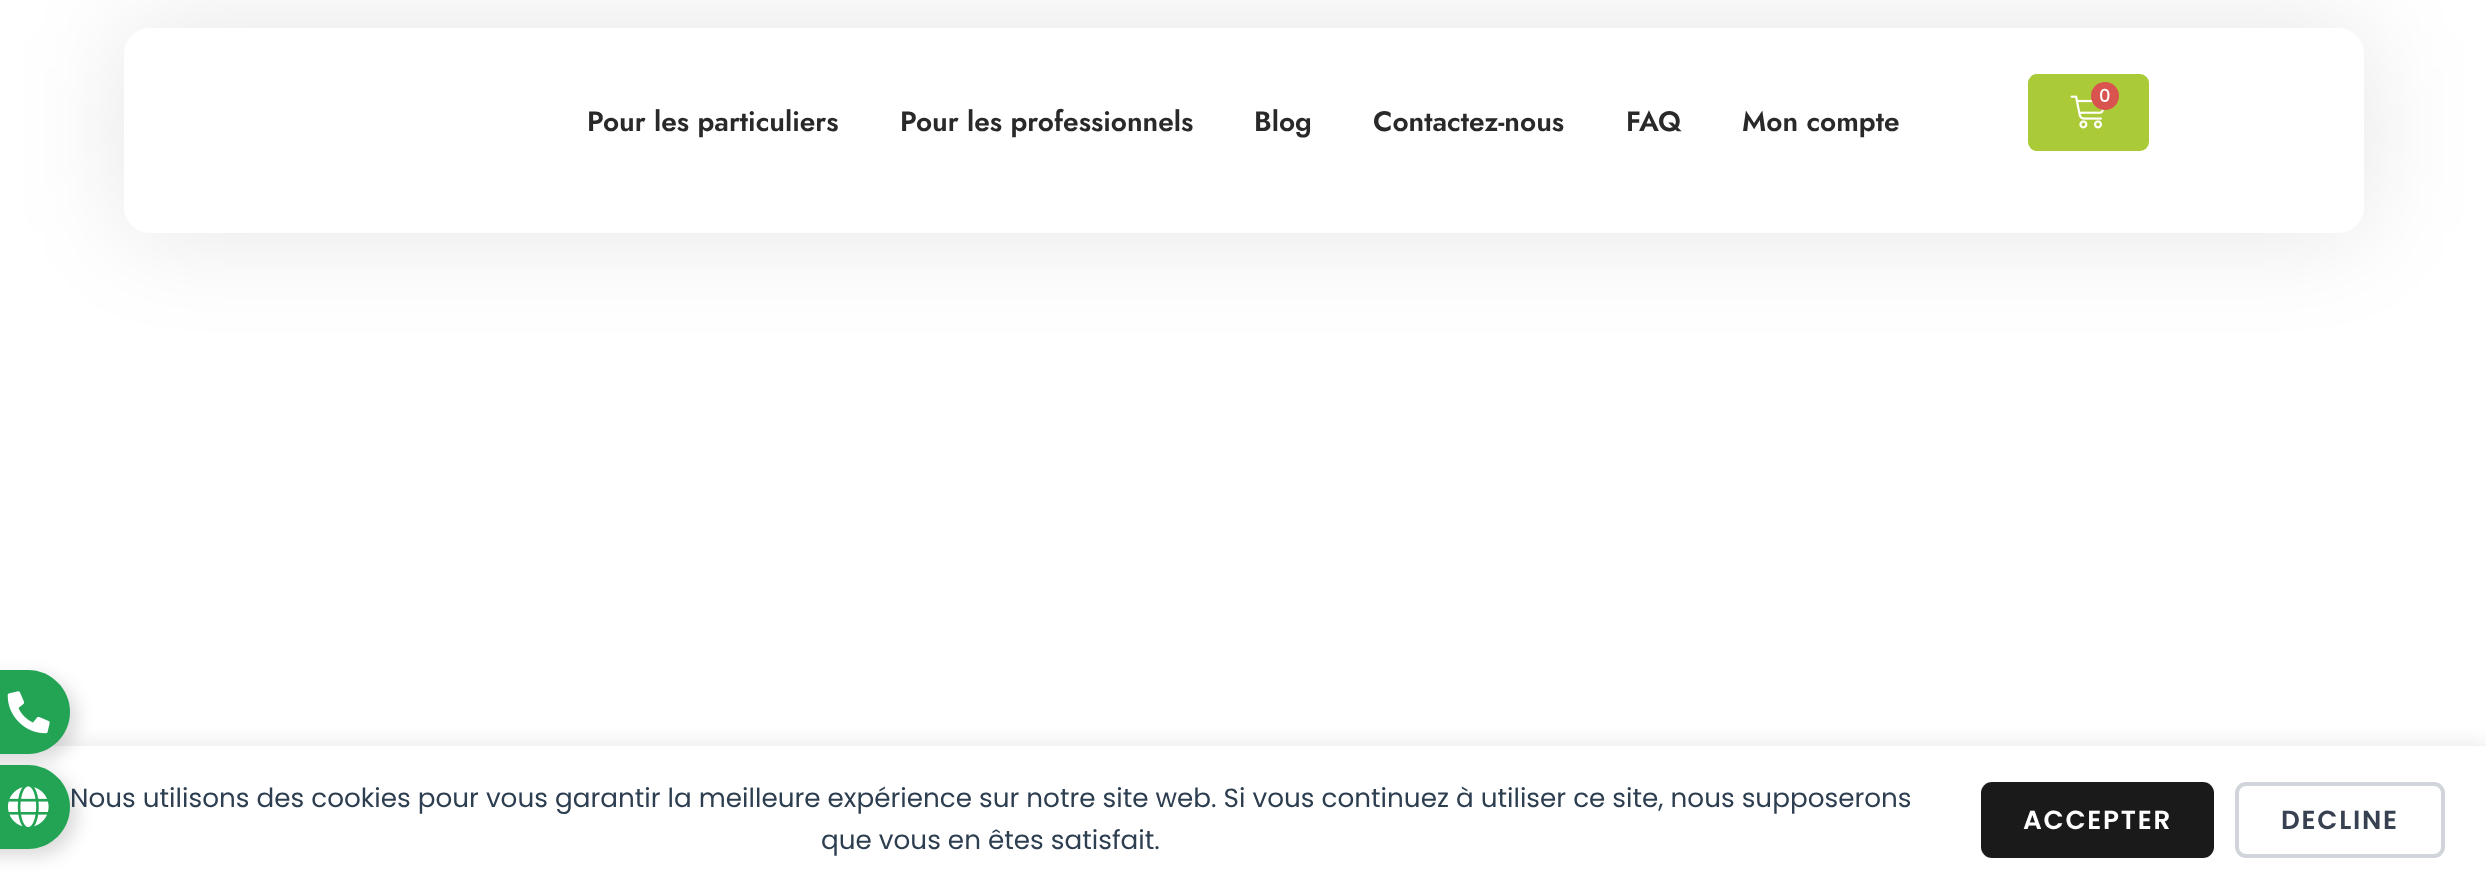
<svg xmlns="http://www.w3.org/2000/svg" width="2486" height="892">
<style>
.a{font:500 18px Poppins;letter-spacing:1.75px;fill:#fff}
.b{font:600 28px Jost;fill:#292929}
.c{font:26.25px Poppins;fill:#2c3e50}
.d{font:600 26.25px Poppins;letter-spacing:1.75px;fill:#fff}
.e{font:600 26.25px Poppins;letter-spacing:1.75px;fill:#374151}
</style>
<rect width="100%" height="100%" fill="#fff"/>
<rect fill="#0000001a" filter="blur(52.5px)" x="124" y="28" width="2240" height="205" rx="26"/>
<rect fill="#fff" x="124" y="28" width="2240" height="205" rx="26"/>
<rect fill="#abca37" x="2028" y="74" width="121" height="77" rx="9"/>
<image href="1.png" x="2070" y="95" width="34" height="34"/>
<circle fill="#d9534f" cx="2105" cy="96" r="14"/>
<path fill="#00000014" filter="blur(9px)" d="M0 742h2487v147H0z"/>
<path fill="#fff" d="M0 746h2486v146H0z"/>
<rect fill="#00000026" filter="blur(9px)" x="-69" y="677" width="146" height="84" rx="42"/>
<path fill="#23a455" d="M-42 670h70c23 0 42 19 42 42c0 23-19 42-42 42h-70z"/>
<image href="2.png" x="7" y="691" width="43" height="43"/>
<rect fill="#00000026" filter="blur(9px)" x="-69" y="772" width="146" height="84" rx="42"/>
<path fill="#23a455" d="M-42 765h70c23 0 42 19 42 42c0 23-19 42-42 42h-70z"/>
<image href="3.png" x="7" y="786" width="42" height="42"/>
<rect fill="#1a1a1a" x="1981" y="782" width="233" height="76" rx="11"/>
<rect fill="none" stroke="#d1d5db" stroke-width="4" x="2237" y="784" width="206" height="72" rx="9"/>
<text class="a" x="2099" y="102">0</text>
<text class="b" x="587" y="131">Pour les particuliers</text>
<text class="b" x="900" y="131">Pour les professionnels</text>
<text class="b" x="1254" y="131">Blog</text>
<text class="b" x="1373" y="131">Contactez-nous</text>
<text class="b" x="1626" y="131">FAQ</text>
<text class="b" x="1742" y="131">Mon compte</text>
<text class="c" x="70" y="807">Nous utilisons des cookies pour vous garantir la meilleure expérience sur notre site web. Si vous continuez à utiliser ce site, nous supposerons</text>
<text class="c" x="821" y="849">que vous en êtes satisfait.</text>
<text class="d" x="2023" y="829">ACCEPTER</text>
<text class="e" x="2281" y="829">DECLINE</text>
</svg>
